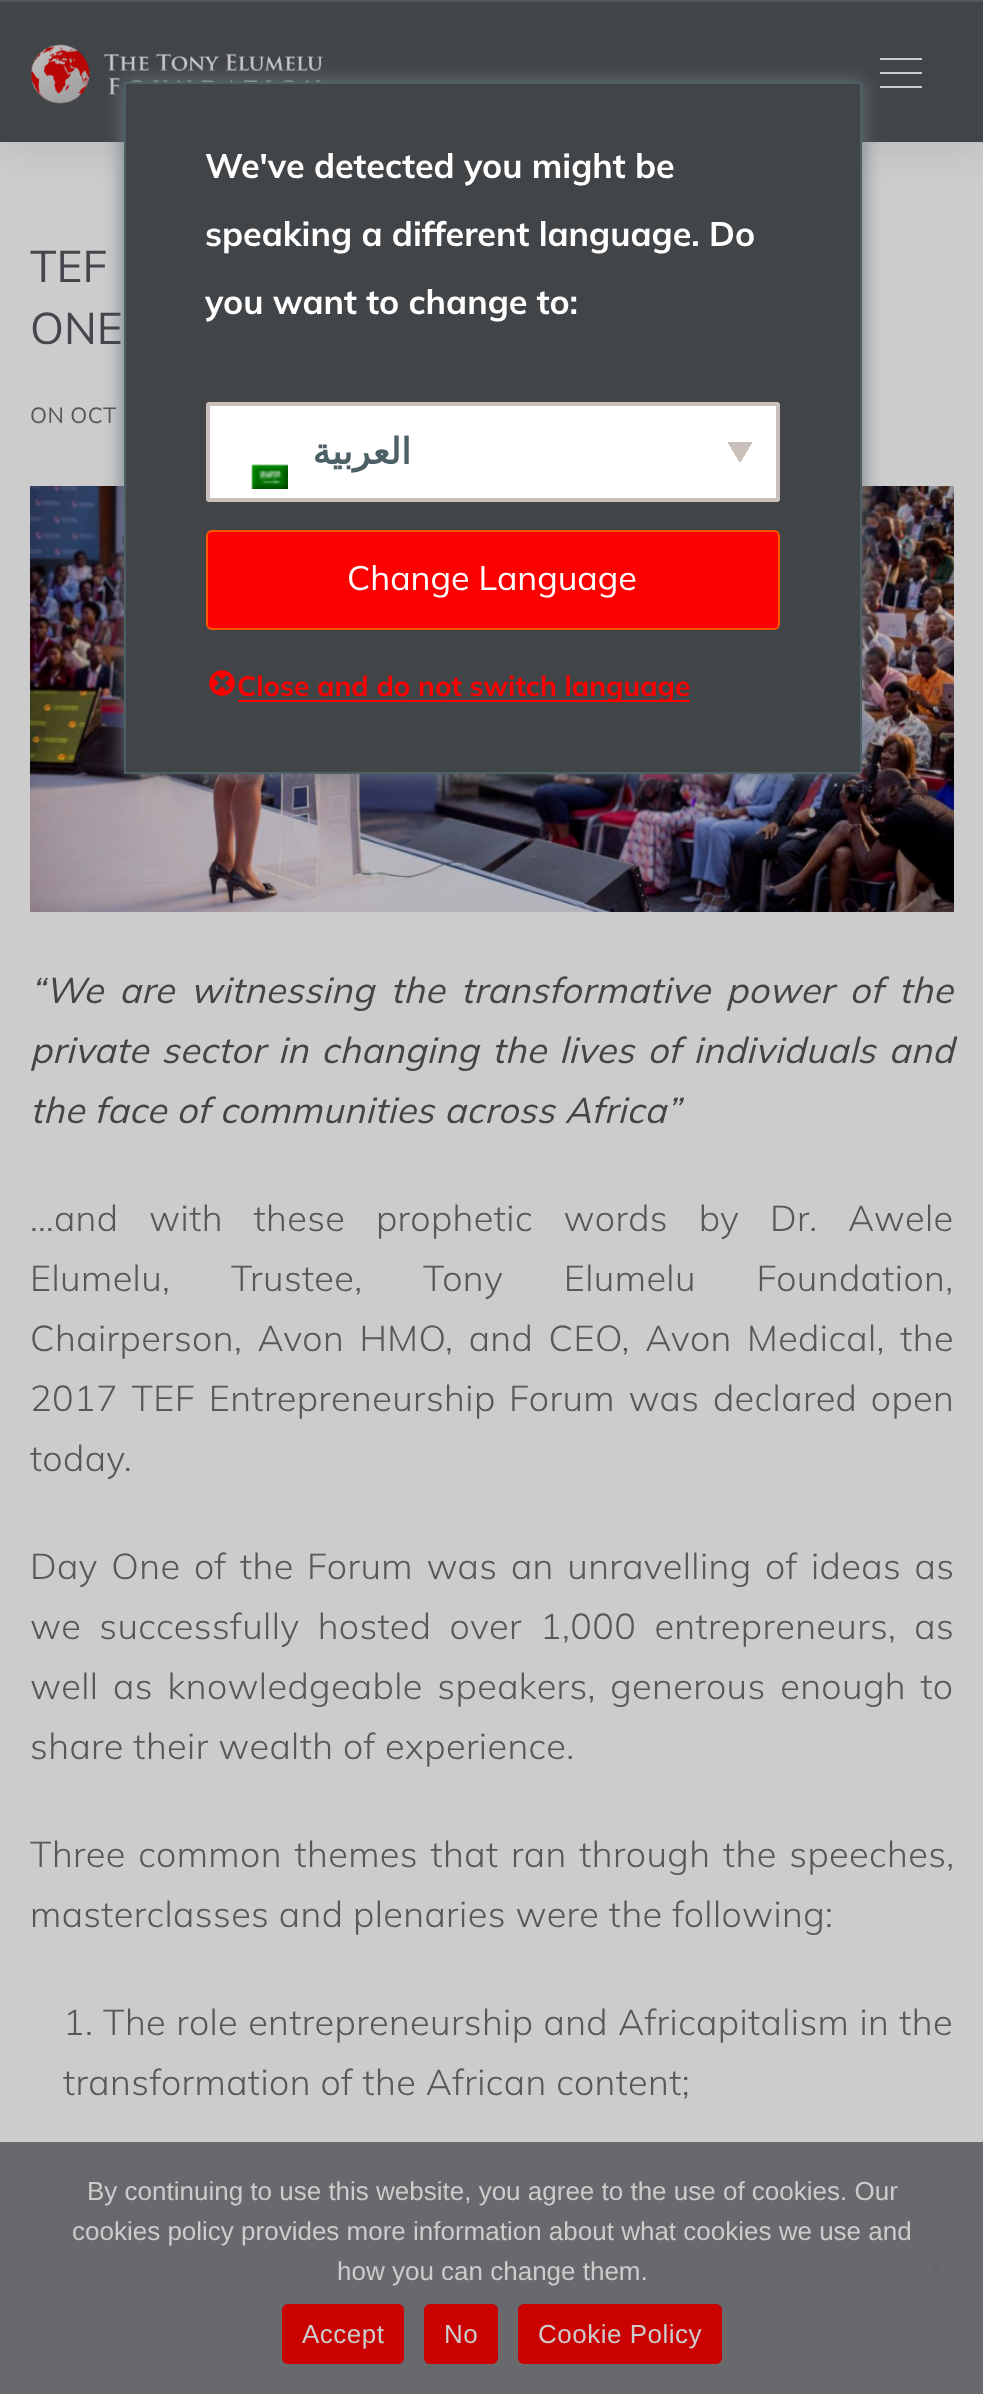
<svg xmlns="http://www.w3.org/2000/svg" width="983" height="2394">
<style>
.a{font:bold 34px Mulish;fill:#fff}
.b{font:bold 36px DejaVu Sans;direction:rtl;fill:#4c6066}
.c{font:200 34px Mulish;fill:#fff}
.d{font:bold 28px Mulish;fill:#fd0000}
.e{font:44px Muli;fill:#43474c}
.f{font:200 22px Mulish;letter-spacing:0.4px;fill:#58585a}
.g{font:italic 200 36px Mulish;letter-spacing:0.4px;fill:#444}
.h{font:300 36px Mulish;letter-spacing:0.4px;fill:#58585a}
.i{font:26px Liberation Sans;fill:#ccc}
.j{font:26px Liberation Sans;letter-spacing:0.5px;fill:#ccc}
</style>
<defs>
<linearGradient id="g1" gradientUnits="userSpaceOnUse" x1="736" y1="447" x2="756" y2="459"><stop offset="0.5" stop-color="#c9c0bb"/><stop offset="0.5" stop-color="#fff"/></linearGradient>
<linearGradient id="g2" gradientUnits="userSpaceOnUse" x1="724" y1="459" x2="744" y2="447"><stop offset="0.5" stop-color="#fff"/><stop offset="0.5" stop-color="#c9c0bb"/></linearGradient>
</defs>
<rect width="100%" height="100%" fill="#ccc"/>
<path fill="#00000014" filter="blur(18px)" d="M0 8h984v142H0z"/>
<path fill="#424548" d="M0 2h983v140H0z"/>
<image href="3.png" x="31" y="44" width="292" height="60"/>
<path fill="#ccc" d="M880 58h42v2H880z"/>
<path fill="#ccc" d="M880 72h42v2H880z"/>
<path fill="#ccc" d="M880 86h42v2H880z"/>
<image href="4.png" x="30" y="486" width="924" height="426"/>
<path fill="#6c7781" filter="blur(10px)" d="M124 82h738v692H124z"/>
<path fill="#424548" stroke="#4c6066" stroke-width="2" d="M125 83h736v690H125z"/>
<rect fill="#fff" x="206" y="402" width="574" height="100" rx="4"/>
<path fill="url(#g1)" d="M740 442h12v20H740z"/>
<path fill="url(#g2)" d="M728 442h12v20H728z"/>
<rect fill="none" stroke="#c9c0bb" stroke-width="4" x="208" y="404" width="570" height="96" rx="2"/>
<image href="1.png" x="251" y="464" width="37" height="25"/>
<rect fill="#fd0000" stroke="#fd5500" stroke-width="2" x="207" y="531" width="572" height="98" rx="5"/>
<image href="2.png" x="209" y="670" width="26" height="26"/>
<path fill="#fd0000" d="M238 700h452v2H238z"/>
<path fill="#53565a" d="M0 0h983v2H0z"/>
<path fill="#424548ba" d="M0 2142h983v252H0z"/>
<path fill="#66666680" d="M945 2257l3 3l-21 21l-3-3z"/>
<path fill="#66666680" d="M924 2260l3-3l21 21l-3 3z"/>
<rect fill="#cb0000" x="282" y="2304" width="122" height="60" rx="6"/>
<rect fill="#cb0000" x="424" y="2304" width="74" height="60" rx="6"/>
<rect fill="#cb0000" x="518" y="2304" width="204" height="60" rx="6"/>
<text class="a" x="205" y="178">We've detected you might be</text>
<text class="a" x="205" y="246">speaking a different language. Do</text>
<text class="a" x="205" y="314">you want to change to:</text>
<text class="b" x="411" y="464">العربية</text>
<text class="c" x="347" y="590">Change Language</text>
<text class="d" x="237" y="696">Close and do not switch language</text>
<text class="e" x="30" y="282">TEF</text>
<text class="e" x="30" y="344">ONE</text>
<text class="f" x="30" y="423">ON OCT</text>
<text class="g" x="30" y="1003" word-spacing="6">“We are witnessing the transformative power of the</text>
<text class="g" x="30" y="1063" word-spacing="3">private sector in changing the lives of individuals and</text>
<text class="g" x="30" y="1123">the face of communities across Africa”</text>
<text class="h" x="30" y="1231" word-spacing="21">…and with these prophetic words by Dr. Awele</text>
<text class="h" x="30" y="1291" word-spacing="51">Elumelu, Trustee, Tony Elumelu Foundation,</text>
<text class="h" x="30" y="1351" word-spacing="5.75">Chairperson, Avon HMO, and CEO, Avon Medical, the</text>
<text class="h" x="30" y="1411" word-spacing="3.9">2017 TEF Entrepreneurship Forum was declared open</text>
<text class="h" x="30" y="1471">today.</text>
<text class="h" x="30" y="1579" word-spacing="3.9">Day One of the Forum was an unravelling of ideas as</text>
<text class="h" x="30" y="1639" word-spacing="8.5">we successfully hosted over 1,000 entrepreneurs, as</text>
<text class="h" x="30" y="1699" word-spacing="5">well as knowledgeable speakers, generous enough to</text>
<text class="h" x="30" y="1759">share their wealth of experience.</text>
<text class="h" x="30" y="1867" word-spacing="3">Three common themes that ran through the speeches,</text>
<text class="h" x="30" y="1927">masterclasses and plenaries were the following:</text>
<text class="h" x="63" y="2035">1.</text>
<text class="h" x="103" y="2035" word-spacing="0.5">The role entrepreneurship and Africapitalism in the</text>
<text class="h" x="63" y="2095">transformation of the African content;</text>
<text class="i" x="87" y="2200">By continuing to use this website, you agree to the use of cookies. Our</text>
<text class="i" x="72" y="2240">cookies policy provides more information about what cookies we use and</text>
<text class="i" x="337" y="2280">how you can change them.</text>
<text class="j" x="302" y="2343">Accept</text>
<text class="j" x="444" y="2343">No</text>
<text class="j" x="538" y="2343">Cookie Policy</text>
</svg>
